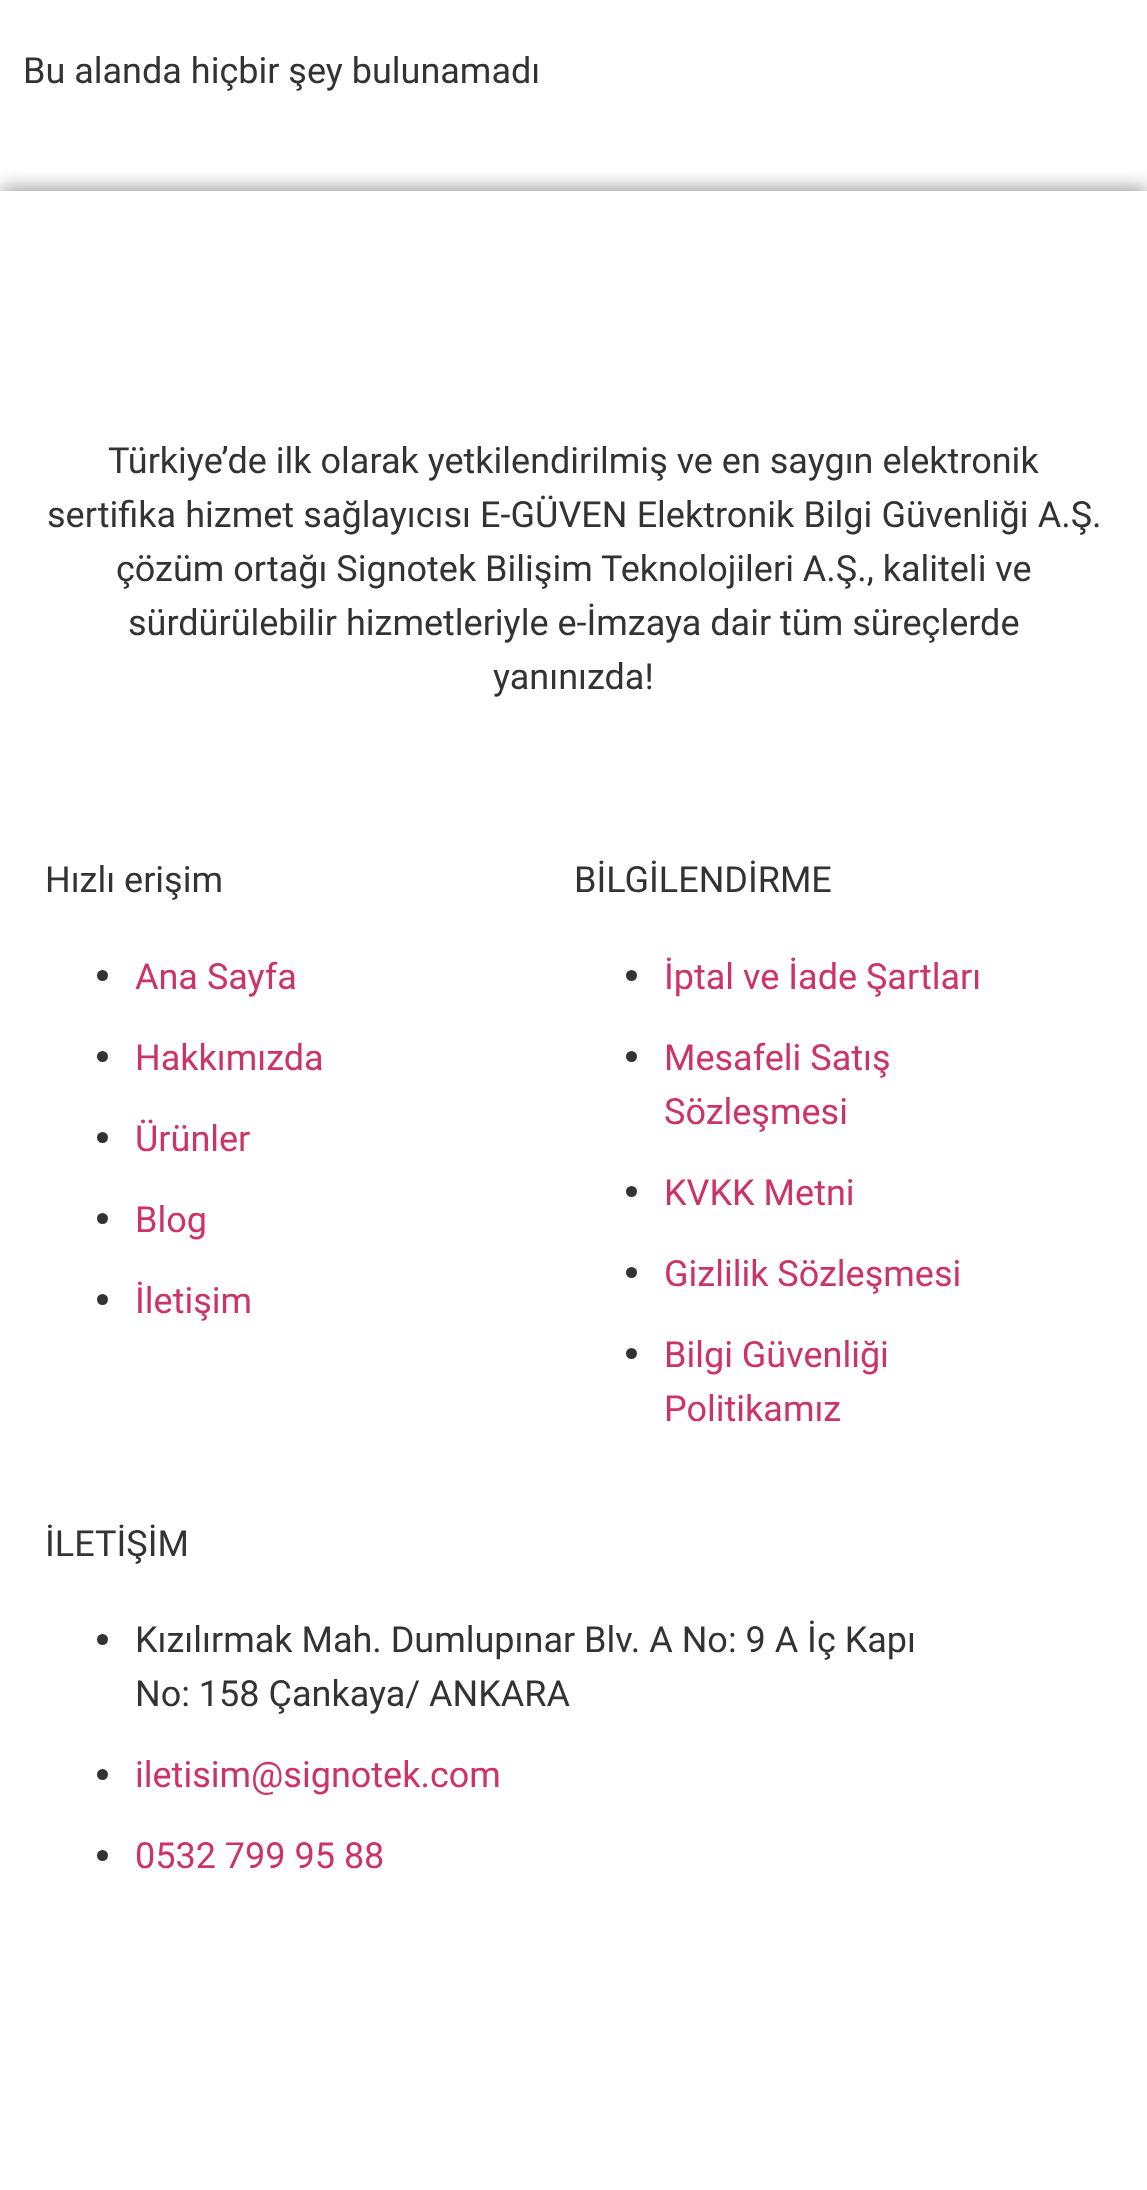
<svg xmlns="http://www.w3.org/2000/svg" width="1147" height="2190">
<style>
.a{font:36px Roboto;fill:#333}
.b{font:36px Roboto;fill:#c36}
</style>
<defs>
<clipPath id="clip1"><path d="M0 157h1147v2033h-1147zm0 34h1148v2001h-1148z" clip-rule="evenodd"/></clipPath>
</defs>
<rect width="100%" height="100%" fill="#fff"/>
<g clip-path="url(#clip1)">
<path fill="#00000080" filter="blur(11px)" d="M0 191h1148v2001H0z"/>
</g>
<circle fill="#333" cx="102.5" cy="975.5" r="5.5"/>
<circle fill="#333" cx="102.5" cy="1056.5" r="5.5"/>
<circle fill="#333" cx="102.5" cy="1137.5" r="5.5"/>
<circle fill="#333" cx="102.5" cy="1218.5" r="5.5"/>
<circle fill="#333" cx="102.5" cy="1299.5" r="5.5"/>
<circle fill="#333" cx="631.5" cy="975.5" r="5.5"/>
<circle fill="#333" cx="631.5" cy="1056.5" r="5.5"/>
<circle fill="#333" cx="631.5" cy="1191.5" r="5.5"/>
<circle fill="#333" cx="631.5" cy="1272.5" r="5.5"/>
<circle fill="#333" cx="631.5" cy="1353.5" r="5.5"/>
<circle fill="#333" cx="102.5" cy="1639.5" r="5.5"/>
<circle fill="#333" cx="102.5" cy="1774.5" r="5.5"/>
<circle fill="#333" cx="102.5" cy="1855.5" r="5.5"/>
<text class="a" x="23" y="83">Bu alanda hiçbir şey bulunamadı</text>
<text class="a" x="108" y="473">Türkiye’de ilk olarak yetkilendirilmiş ve en saygın elektronik</text>
<text class="a" x="47" y="527" word-spacing="0.25">sertifika hizmet sağlayıcısı E-GÜVEN Elektronik Bilgi Güvenliği A.Ş.</text>
<text class="a" x="116" y="581">çözüm ortağı Signotek Bilişim Teknolojileri A.Ş., kaliteli ve</text>
<text class="a" x="128" y="635">sürdürülebilir hizmetleriyle e-İmzaya dair tüm süreçlerde</text>
<text class="a" x="493" y="689">yanınızda!</text>
<text class="a" x="45" y="892">Hızlı erişim</text>
<text class="b" x="135" y="989">Ana Sayfa</text>
<text class="b" x="135" y="1070">Hakkımızda</text>
<text class="b" x="135" y="1151">Ürünler</text>
<text class="b" x="135" y="1232">Blog</text>
<text class="b" x="135" y="1313">İletişim</text>
<text class="a" x="574" y="892">BİLGİLENDİRME</text>
<text class="b" x="664" y="989">İptal ve İade Şartları</text>
<text class="b" x="664" y="1070">Mesafeli Satış</text>
<text class="b" x="664" y="1124">Sözleşmesi</text>
<text class="b" x="664" y="1205">KVKK Metni</text>
<text class="b" x="664" y="1286">Gizlilik Sözleşmesi</text>
<text class="b" x="664" y="1367">Bilgi Güvenliği</text>
<text class="b" x="664" y="1421">Politikamız</text>
<text class="a" x="45" y="1556">İLETİŞİM</text>
<text class="a" x="135" y="1652">Kızılırmak Mah. Dumlupınar Blv. A No: 9 A İç Kapı</text>
<text class="a" x="135" y="1706">No: 158 Çankaya/ ANKARA</text>
<text class="b" x="135" y="1787">iletisim@signotek.com</text>
<text class="b" x="135" y="1868">0532 799 95 88</text>
</svg>
